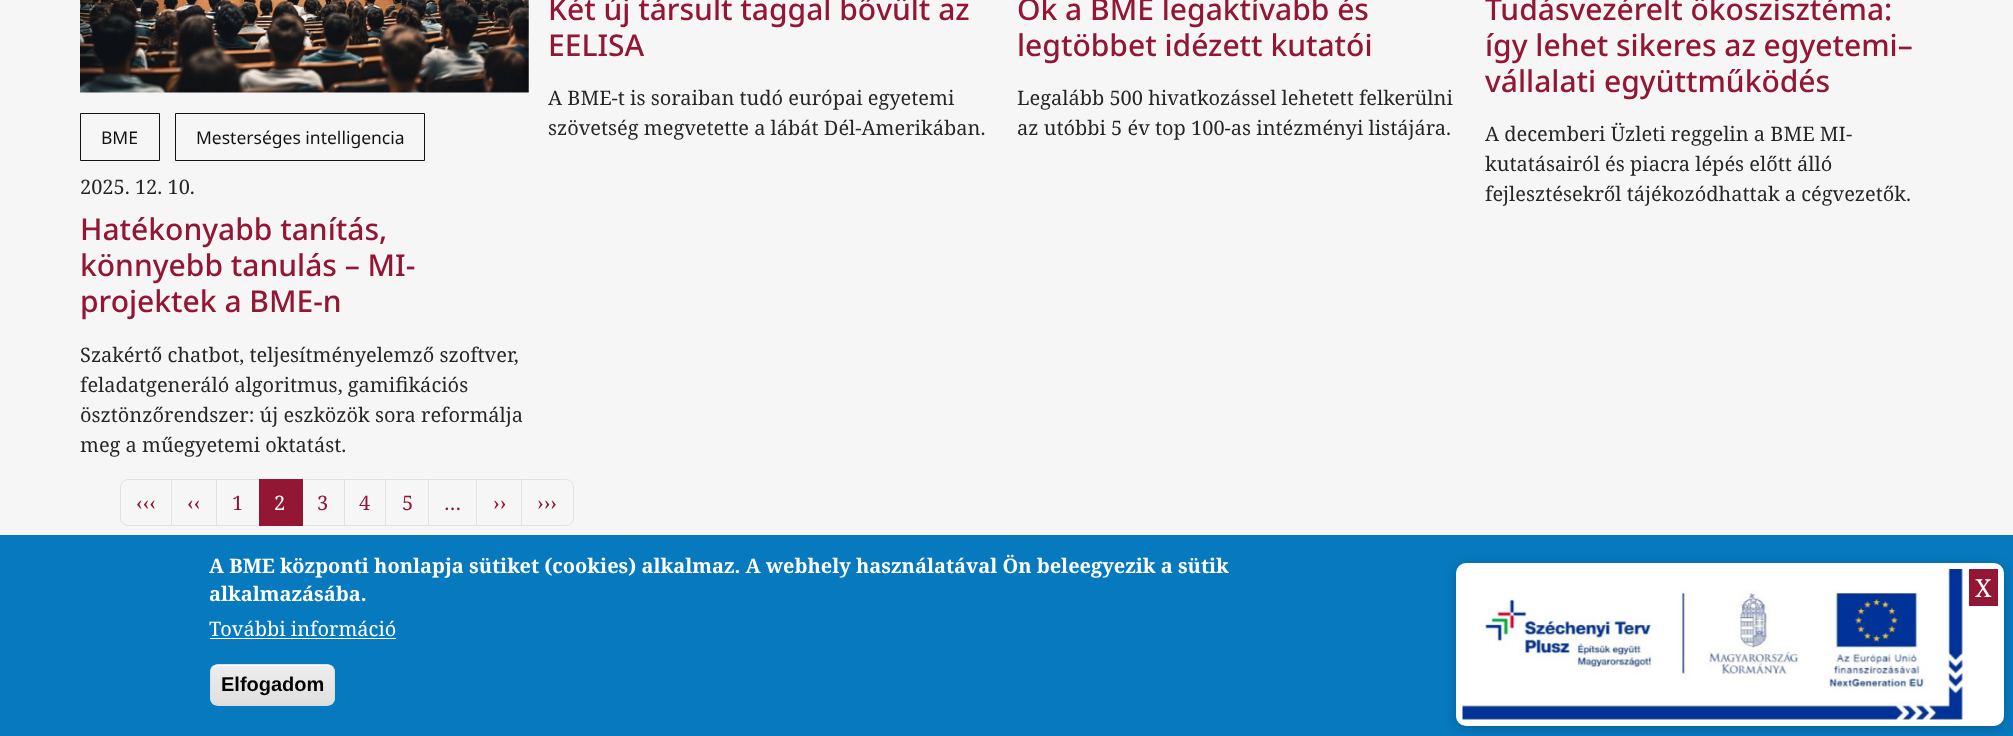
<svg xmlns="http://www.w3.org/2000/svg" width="2013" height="736">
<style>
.a{font:500 30px Noto Sans;fill:#931634}
.b{font:20px Noto Serif;fill:#262626}
.c{font:17.5px Noto Sans;fill:#121313}
.d{font:20px Noto Serif;fill:#931634}
.e{font:20px Noto Serif;fill:#fff}
.f{font:25px Noto Serif;fill:#fff}
.g{font:bold 20px Noto Serif;fill:#fff}
.h{font:bold 20px Liberation Sans;fill:#000}
</style>
<defs>
<clipPath id="clip1"><rect x="210" y="664" width="125" height="42" rx="8"/></clipPath>
<linearGradient id="g1" gradientUnits="userSpaceOnUse" x1="273" y1="665" x2="273" y2="705"><stop offset="0.05" stop-color="#ededed"/><stop offset="1" stop-color="#dfdfdf"/></linearGradient>
</defs>
<rect width="100%" height="100%" fill="#f6f6f6"/>
<image href="1.png" x="80" y="0" width="449" height="93"/>
<path fill="none" stroke="#121313" d="M80.5 113.5h79v47H80.5z"/>
<path fill="none" stroke="#121313" d="M175.5 113.5h249v47H175.5z"/>
<path fill="none" stroke="#dee2e6" d="M128 479.5h44.5v46h-44.5c-4 0-7.5-3.5-7.5-7.5v-31c0-4 3.5-7.5 7.5-7.5z"/>
<path fill="#f6f6f6" d="M172 480h1v45H172z"/>
<path fill="none" stroke="#dee2e6" d="M171.5 479.5h46v46H171.5z"/>
<path fill="#f6f6f6" d="M217 480h1v45H217z"/>
<path fill="none" stroke="#dee2e6" d="M216.5 479.5h43v46H216.5z"/>
<path fill="none" stroke="#dee2e6" d="M301.5 479.5h43v46H301.5z"/>
<path fill="#931634" d="M259 479h44v47H259z"/>
<path fill="none" stroke="#dee2e6" d="M344.5 479.5h41v46H344.5z"/>
<path fill="none" stroke="#dee2e6" d="M385.5 479.5h43v46H385.5z"/>
<path fill="none" stroke="#dee2e6" d="M428.5 479.5h49v46H428.5z"/>
<path fill="#f6f6f6" d="M477 480h1v45H477z"/>
<path fill="none" stroke="#dee2e6" d="M476.5 479.5h46v46H476.5z"/>
<path fill="#f6f6f6" stroke="#dee2e6" d="M521.5 479.5h44.5c4 0 7.5 3.5 7.5 7.5v31c0 4-3.5 7.5-7.5 7.5h-44.5z"/>
<path fill="#0779bf" d="M0 535h2013v201H0z"/>
<rect fill="#00000033" filter="blur(6px)" x="1456" y="565" width="548" height="164" rx="10"/>
<rect fill="#fff" x="1456" y="563" width="548" height="163" rx="10"/>
<image href="2.png" x="1462" y="569" width="501" height="151"/>
<path fill="#931634" d="M1969 569h29v37H1969z"/>
<path fill="#fff" d="M210 638h186v1H210z"/>
<g clip-path="url(#clip1)">
<path fill="url(#g1)" d="M210 665h125v40H210z"/>
</g>
<path fill="#fff" d="M218 666h110c3 0 6 3 6 6c0-12-19-7-24-7h-74c-6 0-25-5-25 7c0-3 3-6 7-6z"/>
<rect fill="none" stroke="#dcdcdc" x="210.5" y="664.5" width="124" height="41" rx="7.5"/>
<text class="a" x="548" y="20">Két új társult taggal bővült az</text>
<text class="a" x="548" y="56">EELISA</text>
<text class="b" x="548" y="105">A BME-t is soraiban tudó európai egyetemi</text>
<text class="b" x="548" y="135">szövetség megvetette a lábát Dél-Amerikában.</text>
<text class="a" x="1017" y="20">Ők a BME legaktívabb és</text>
<text class="a" x="1017" y="56">legtöbbet idézett kutatói</text>
<text class="b" x="1017" y="105">Legalább 500 hivatkozássel lehetett felkerülni</text>
<text class="b" x="1017" y="135">az utóbbi 5 év top 100-as intézményi listájára.</text>
<text class="a" x="1485" y="20">Tudásvezérelt ökoszisztéma:</text>
<text class="a" x="1485" y="56">így lehet sikeres az egyetemi–</text>
<text class="a" x="1485" y="92">vállalati együttműködés</text>
<text class="b" x="1485" y="141">A decemberi Üzleti reggelin a BME MI-</text>
<text class="b" x="1485" y="171">kutatásairól és piacra lépés előtt álló</text>
<text class="b" x="1485" y="201">fejlesztésekről tájékozódhattak a cégvezetők.</text>
<text class="c" x="101" y="144">BME</text>
<text class="c" x="196" y="144">Mesterséges intelligencia</text>
<text class="b" x="80" y="194">2025. 12. 10.</text>
<text class="a" x="80" y="240">Hatékonyabb tanítás,</text>
<text class="a" x="80" y="276">könnyebb tanulás – MI-</text>
<text class="a" x="80" y="312">projektek a BME-n</text>
<text class="b" x="80" y="362">Szakértő chatbot, teljesítményelemző szoftver,</text>
<text class="b" x="80" y="392">feladatgeneráló algoritmus, gamifikációs</text>
<text class="b" x="80" y="422">ösztönzőrendszer: új eszközök sora reformálja</text>
<text class="b" x="80" y="452">meg a műegyetemi oktatást.</text>
<text class="d" x="136" y="510">‹‹‹</text>
<text class="d" x="187" y="510">‹‹</text>
<text class="d" x="232" y="510">1</text>
<text class="e" x="274" y="510">2</text>
<text class="d" x="317" y="510">3</text>
<text class="d" x="359" y="510">4</text>
<text class="d" x="402" y="510">5</text>
<text class="d" x="444" y="510">…</text>
<text class="d" x="493" y="510">››</text>
<text class="d" x="537" y="510">›››</text>
<text class="f" x="1975" y="597">X</text>
<text class="g" x="209" y="573">A BME központi honlapja sütiket (cookies) alkalmaz. A webhely használatával Ön beleegyezik a sütik</text>
<text class="g" x="209" y="601">alkalmazásába.</text>
<text class="e" x="209" y="636">További információ</text>
<text class="h" x="221" y="691">Elfogadom</text>
</svg>
